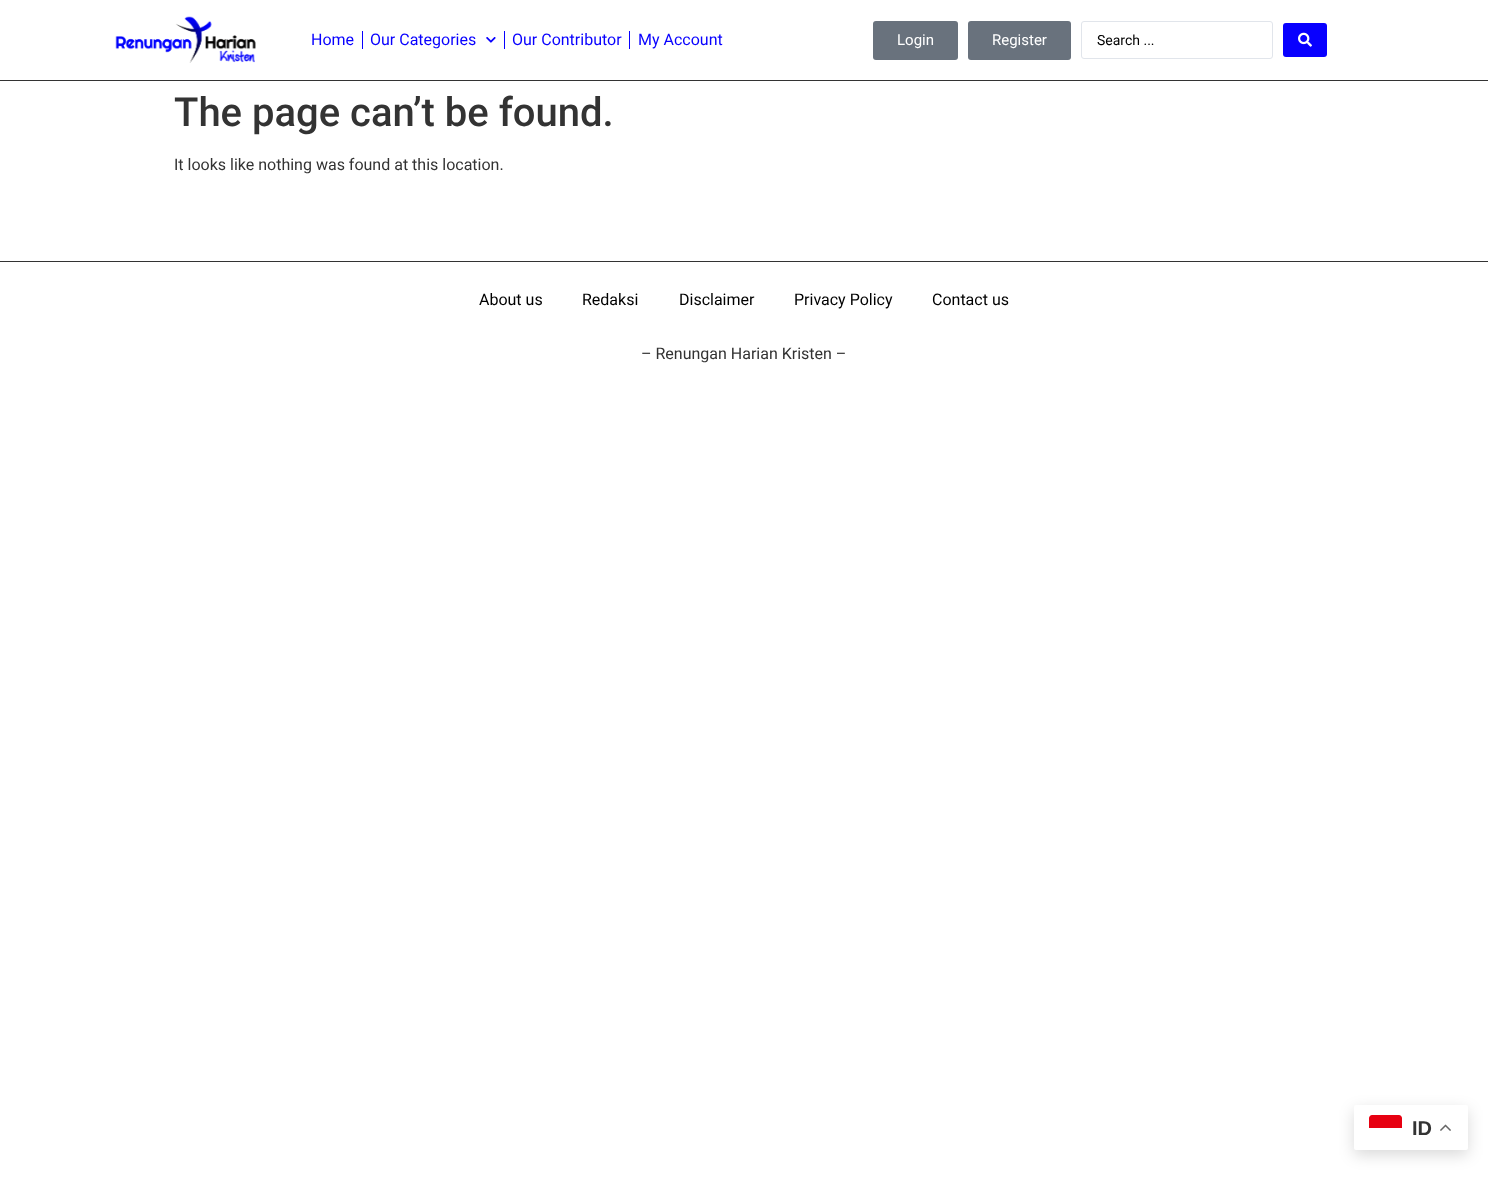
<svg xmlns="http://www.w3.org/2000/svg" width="1488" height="1177">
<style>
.a{font:16px Roboto;fill:#0800ff}
.b{font:15px Roboto;fill:#fff}
.c{font:14px Roboto;fill:#000}
.d{font:500 40px Roboto;fill:#333}
.e{font:16px Roboto;fill:#333}
.f{font:16px Roboto;fill:#000}
.g{font:bold 20px Liberation Sans;fill:#333}
</style>
<rect width="100%" height="100%" fill="#fff"/>
<path fill="#333" d="M0 80h1488v1H0z"/>
<image href="1.png" x="115" y="16" width="141" height="47"/>
<path fill="#0800ff" d="M362 31h1v18H362z"/>
<image href="2.png" x="486" y="37" width="10" height="6"/>
<path fill="#0800ff" d="M504 31h1v18H504z"/>
<path fill="#0800ff" d="M629 31h1v18H629z"/>
<rect fill="#69727d" x="873" y="21" width="85" height="39" rx="3"/>
<rect fill="#69727d" x="968" y="21" width="103" height="39" rx="3"/>
<rect fill="none" stroke="#e1e5eb" x="1081.5" y="21.5" width="191" height="37" rx="2.5"/>
<rect fill="#0800ff" x="1283" y="23" width="44" height="34" rx="3"/>
<image href="3.png" x="1298" y="32" width="14" height="15"/>
<path fill="#333" d="M0 261h1488v1H0z"/>
<rect fill="#00000026" filter="blur(7.5px)" x="1354" y="1110" width="114" height="45" rx="2"/>
<rect fill="#fff" x="1354" y="1105" width="114" height="45" rx="2"/>
<path fill="#e70011" d="M1372 1115h27c1.5 0 3 1.5 3 3v10h-33v-10c0-1.5 1.5-3 3-3z"/>
<image href="4.png" x="1440" y="1124" width="11" height="7"/>
<text class="a" x="311" y="45">Home</text>
<text class="a" x="370" y="45">Our Categories</text>
<text class="a" x="512" y="45">Our Contributor</text>
<text class="a" x="638" y="45">My Account</text>
<text class="b" x="897" y="45">Login</text>
<text class="b" x="992" y="45">Register</text>
<text class="c" x="1097" y="45">Search ...</text>
<text class="d" x="174" y="126">The page can’t be found.</text>
<text class="e" x="174" y="170">It looks like nothing was found at this location.</text>
<text class="f" x="479" y="305">About us</text>
<text class="f" x="582" y="305">Redaksi</text>
<text class="f" x="679" y="305">Disclaimer</text>
<text class="f" x="794" y="305">Privacy Policy</text>
<text class="f" x="932" y="305">Contact us</text>
<text class="e" x="641" y="359">– Renungan Harian Kristen –</text>
<text class="g" x="1412" y="1135">ID</text>
</svg>
